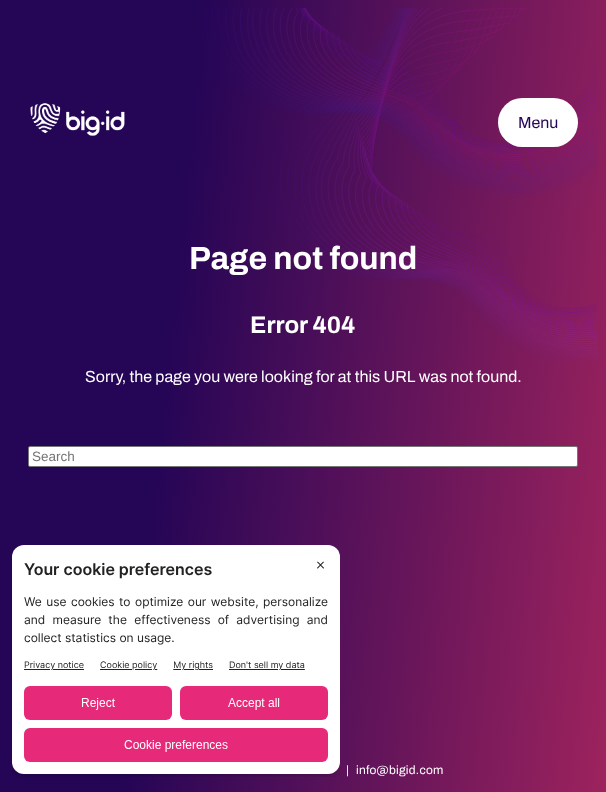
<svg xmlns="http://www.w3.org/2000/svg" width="606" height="792">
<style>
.a{font:16px Archivo;fill:#260657}
.b{font:bold 32px Archivo;fill:#fff}
.c{font:bold 24px Archivo;fill:#fff}
.d{font:16px Archivo;fill:#fff}
.e{font:13.5px Liberation Sans;fill:#757575}
.f{font:12px Archivo;letter-spacing:0.25px;fill:#fff}
</style>
<defs>
<linearGradient id="g1" gradientUnits="userSpaceOnUse" x1="-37" y1="377" x2="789" y2="459"><stop offset="0.24" stop-color="#250556"/><stop offset="1" stop-color="#c22c60"/></linearGradient>
</defs>
<rect width="100%" height="100%" fill="#fff"/>
<path fill="url(#g1)" d="M0 0h606v792H0z"/>
<image href="1.png" x="204" y="8" width="394" height="353"/>
<image href="2.png" x="30" y="103" width="95" height="33"/>
<rect fill="#fff" x="498" y="98" width="80" height="49" rx="24.5"/>
<rect fill="#fff" stroke="#767676" x="28.5" y="446.5" width="549" height="20" rx="1.5"/>
<image href="3.png" x="12" y="545" width="328" height="232"/>
<text class="a" x="518" y="128">Menu</text>
<text class="b" x="189" y="269">Page not found</text>
<text class="c" x="250" y="333">Error 404</text>
<text class="d" x="85" y="382">Sorry, the page you were looking for at this URL was not found.</text>
<text class="e" x="32" y="461">Search</text>
<text class="f" x="346" y="774">|</text>
<text class="f" x="356" y="774">info@bigid.com</text>
</svg>
